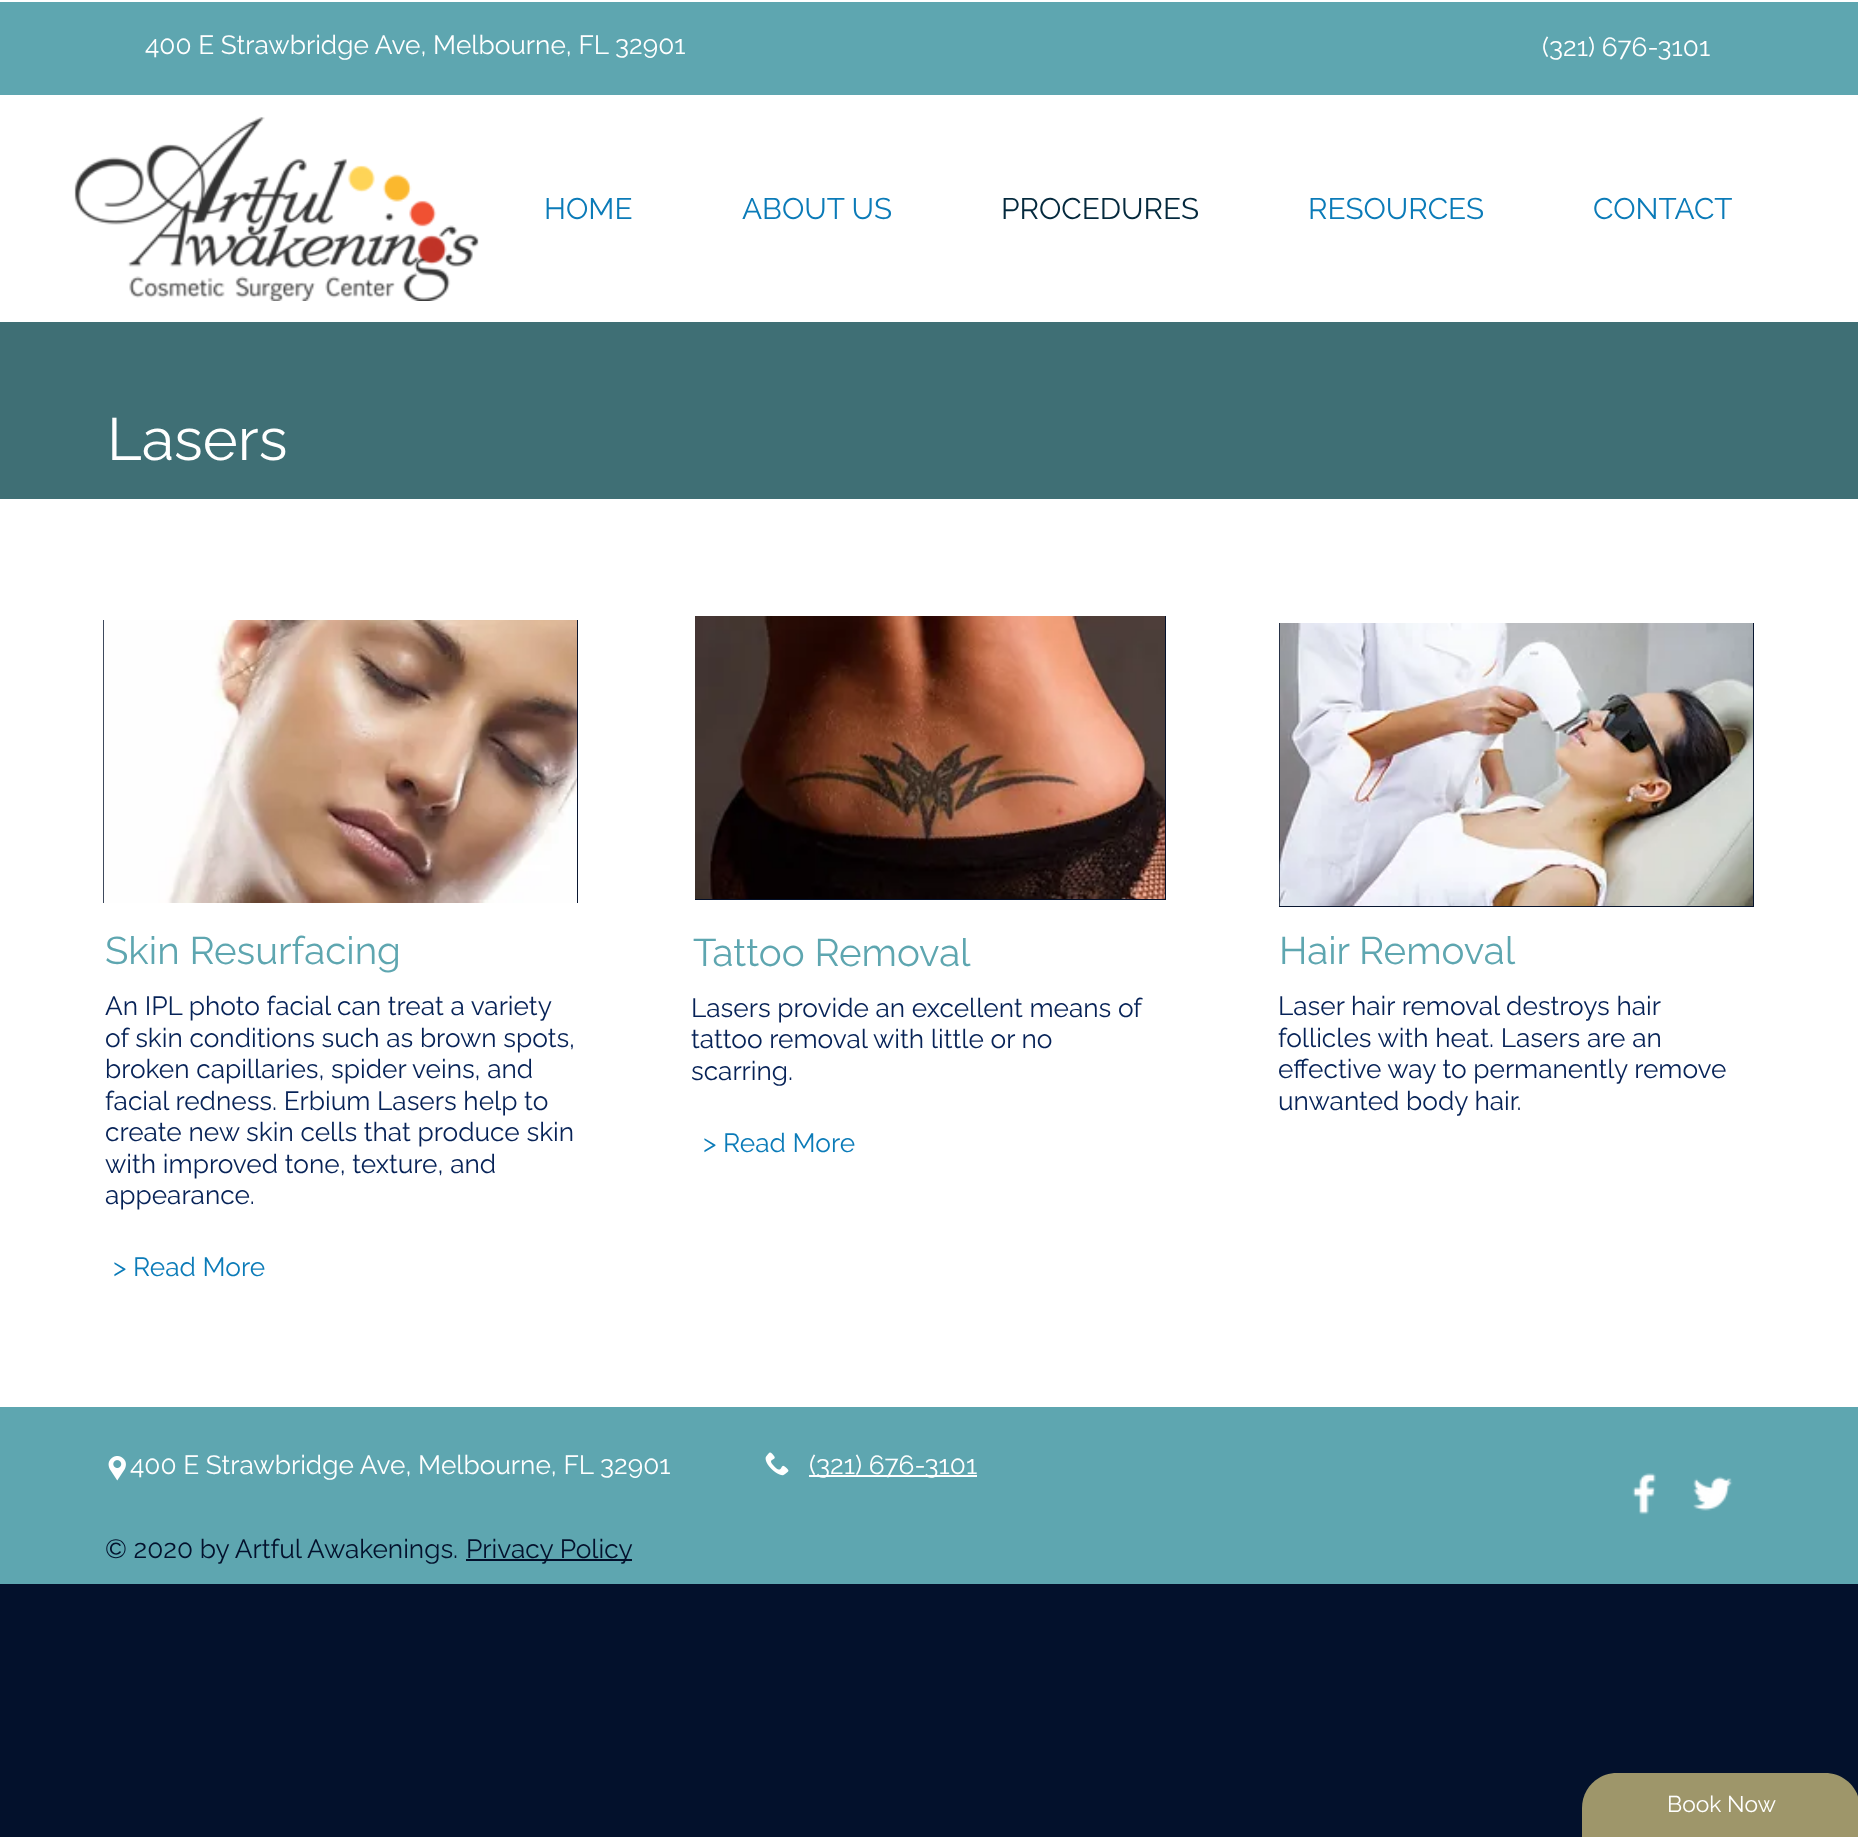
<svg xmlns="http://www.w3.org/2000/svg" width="1858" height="1837">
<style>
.a{font:26.25px Raleway;fill:#fff}
.b{font:29.75px Raleway;fill:#0b7bb8}
.c{font:29.75px Raleway;fill:#04293d}
.d{font:59.5px Raleway;fill:#fff}
.e{font:38.5px Raleway;fill:#5ea6b0}
.f{font:26.25px Raleway;fill:#062257}
.g{font:26.25px Raleway;fill:#0b7bb8}
.h{font:26.25px Raleway;fill:#03112c}
.i{font:22.75px Raleway;fill:#fff}
</style>
<rect width="100%" height="100%" fill="#03112c"/>
<path fill="#fff" d="M0 0h1858v322H0z"/>
<path fill="#5ea6b0" d="M0 2h1858v93H0z"/>
<image href="1.png" x="74" y="117" width="405" height="184"/>
<path fill="#3f6f75" d="M0 322h1858v177H0z"/>
<path fill="#fff" d="M0 499h1858v908H0z"/>
<path fill="#03112c" d="M103 620h475v283H103z"/>
<image href="2.png" x="103" y="620" width="475" height="283"/>
<path fill="#03112c" d="M695 616h471v284H695z"/>
<image href="3.png" x="695" y="616" width="471" height="284"/>
<path fill="#03112c" d="M1279 623h475v284H1279z"/>
<image href="4.png" x="1279" y="623" width="475" height="284"/>
<path fill="#5ea6b0" d="M0 1407h1858v177H0z"/>
<image href="5.png" x="108" y="1456" width="18" height="25"/>
<image href="6.png" x="765" y="1452" width="24" height="24"/>
<path fill="#fff" d="M809 1475h168v2H809z"/>
<image href="7.png" x="1632" y="1473" width="24" height="42"/>
<image href="8.png" x="1693" y="1476" width="40" height="35"/>
<path fill="#03112c" d="M466 1559h166v2H466z"/>
<path fill="#9e966a" d="M1617 1773h208c19.5 0 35 15.5 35 35v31h-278v-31c0-19.5 15.5-35 35-35z"/>
<text class="a" x="145" y="54">400 E Strawbridge Ave, Melbourne, FL 32901</text>
<text class="a" x="1542" y="56">(321) 676-3101</text>
<text class="b" x="544" y="219">HOME</text>
<text class="b" x="742" y="219">ABOUT US</text>
<text class="c" x="1001" y="219">PROCEDURES</text>
<text class="b" x="1308" y="219">RESOURCES</text>
<text class="b" x="1593" y="219">CONTACT</text>
<text class="d" x="107" y="460">Lasers</text>
<text class="e" x="105" y="964">Skin Resurfacing</text>
<text class="f" x="105" y="1015">An IPL photo facial can treat a variety</text>
<text class="f" x="105" y="1047">of skin conditions such as brown spots,</text>
<text class="f" x="105" y="1078">broken capillaries, spider veins, and</text>
<text class="f" x="105" y="1110">facial redness. Erbium Lasers help to</text>
<text class="f" x="105" y="1141">create new skin cells that produce skin</text>
<text class="f" x="105" y="1173">with improved tone, texture, and</text>
<text class="f" x="105" y="1204">appearance.</text>
<text class="g" x="113" y="1276">&gt; Read More</text>
<text class="e" x="693" y="966">Tattoo Removal</text>
<text class="f" x="691" y="1017">Lasers provide an excellent means of</text>
<text class="f" x="691" y="1048">tattoo removal with little or no</text>
<text class="f" x="691" y="1080">scarring.</text>
<text class="g" x="703" y="1152">&gt; Read More</text>
<text class="e" x="1279" y="964">Hair Removal</text>
<text class="f" x="1278" y="1015">Laser hair removal destroys hair</text>
<text class="f" x="1278" y="1047">follicles with heat. Lasers are an</text>
<text class="f" x="1278" y="1078">effective way to permanently remove</text>
<text class="f" x="1278" y="1110">unwanted body hair.</text>
<text class="a" x="130" y="1474">400 E Strawbridge Ave, Melbourne, FL 32901</text>
<text class="a" x="809" y="1474">(321) 676-3101</text>
<text class="h" x="105" y="1558">© 2020 by Artful Awakenings.</text>
<text class="h" x="466" y="1558">Privacy Policy</text>
<text class="i" x="1667" y="1812">Book Now</text>
</svg>
